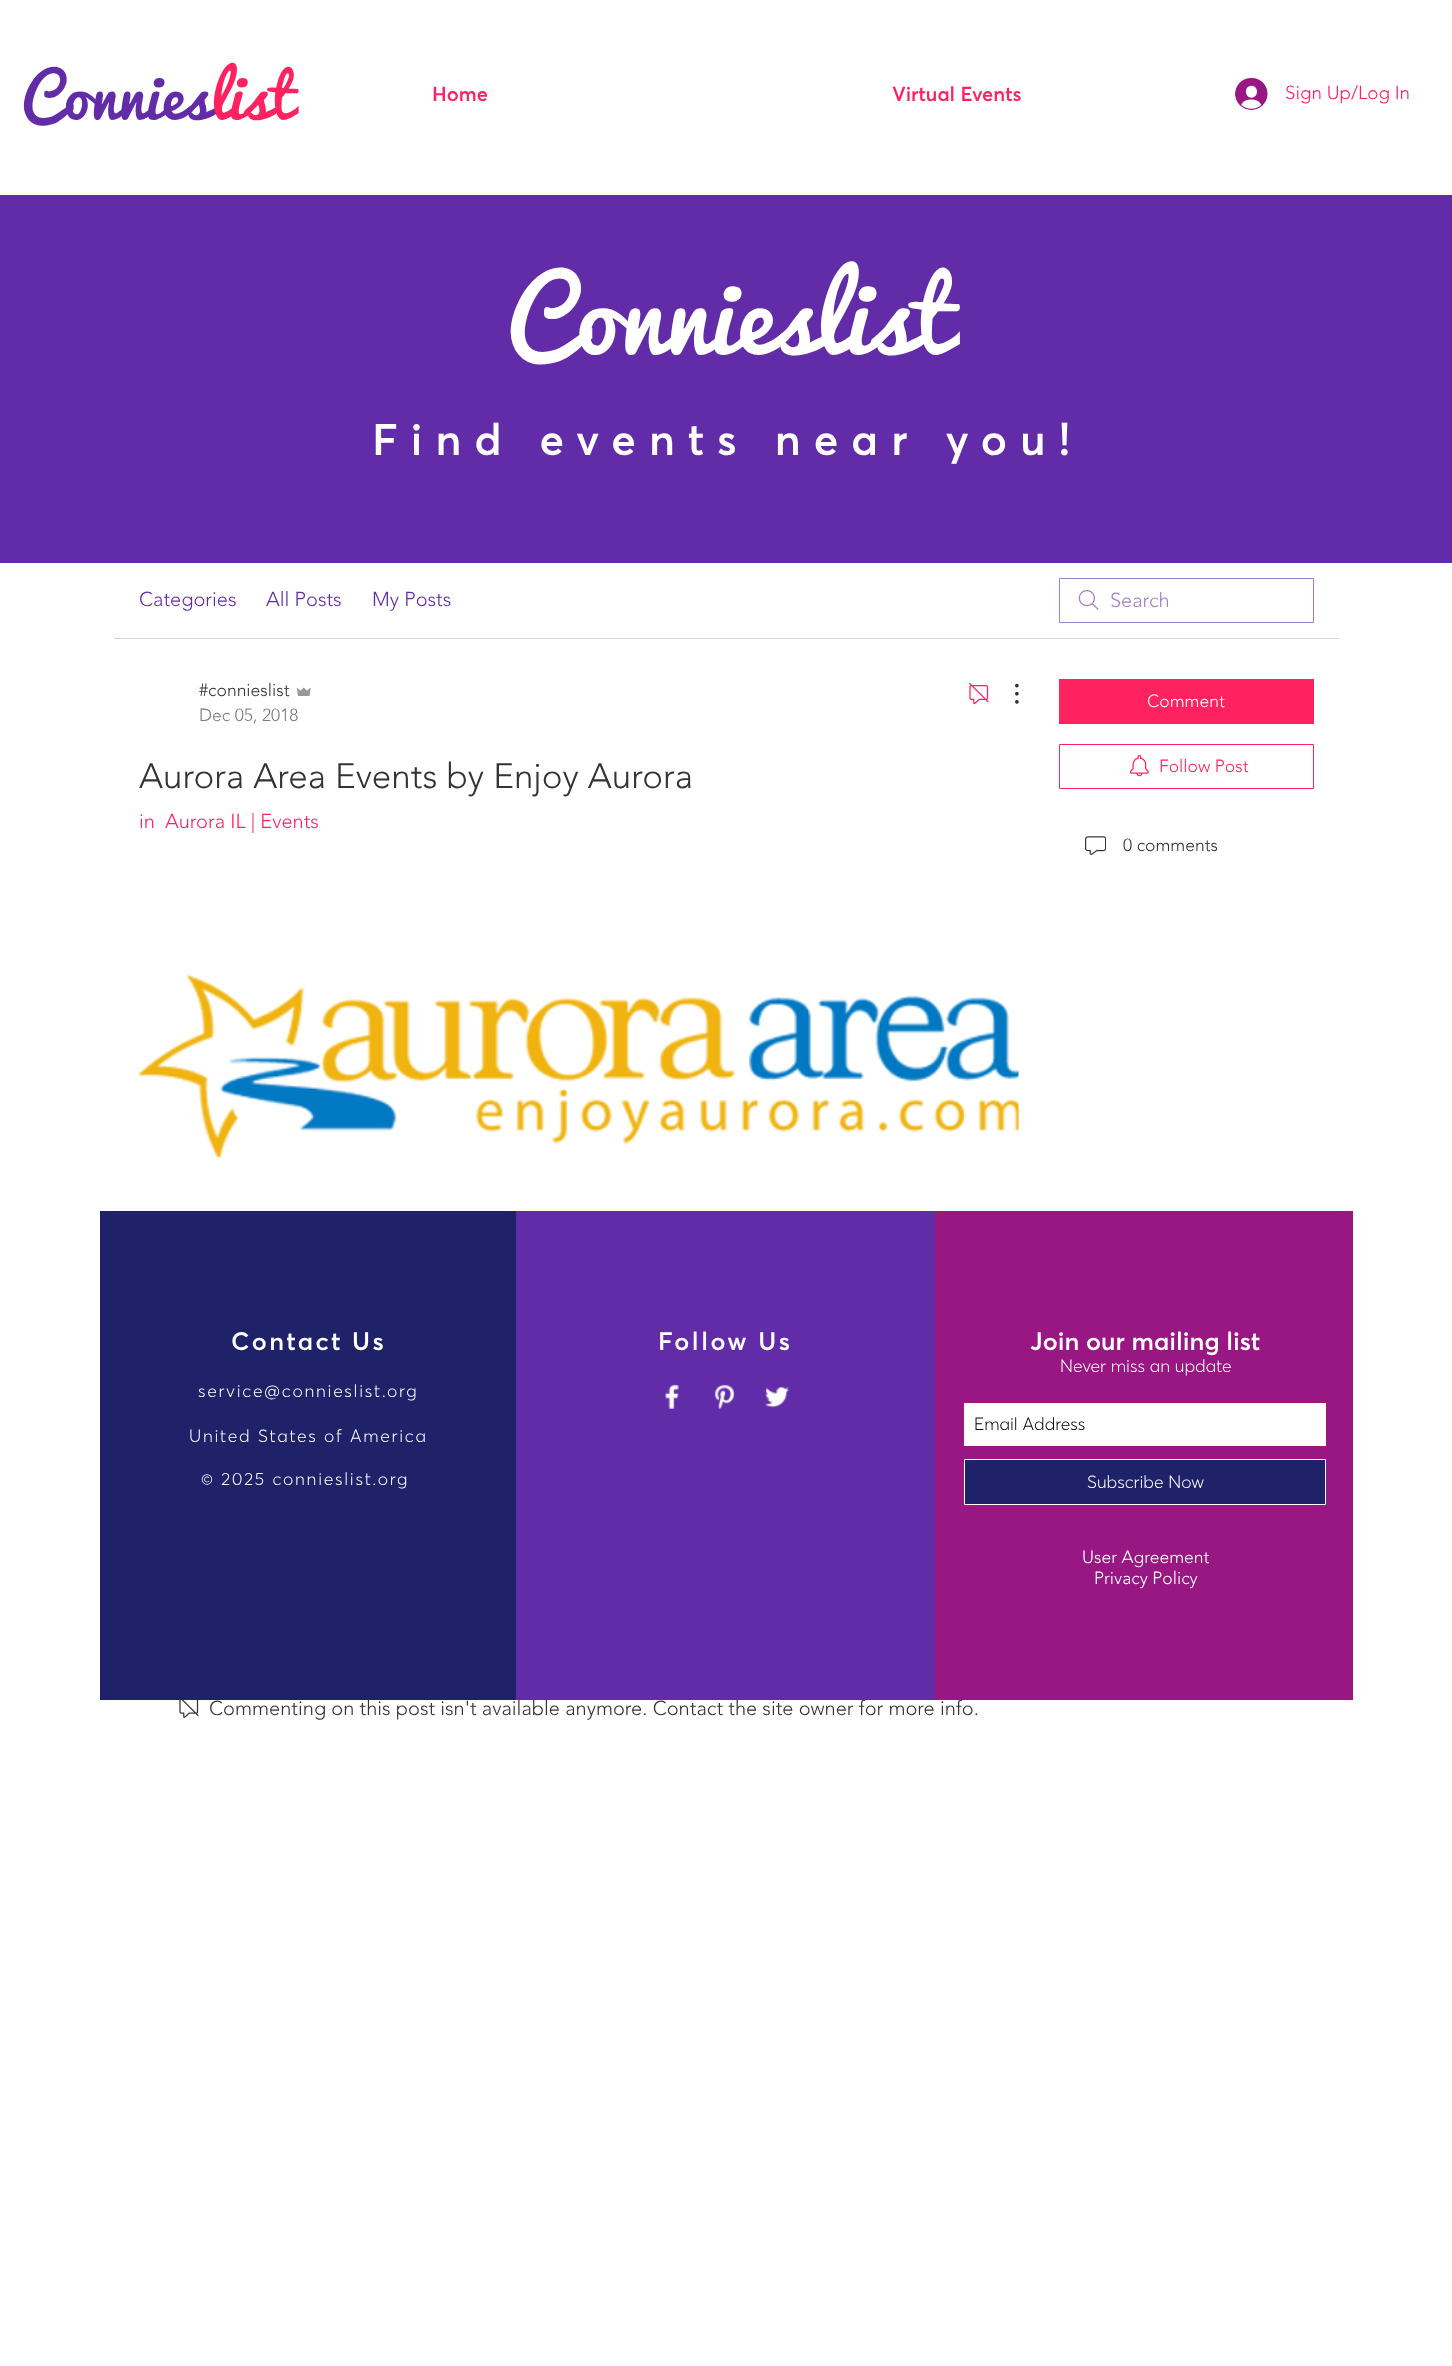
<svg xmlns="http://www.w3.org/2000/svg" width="1452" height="2366">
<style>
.a{font:61px Pacifico;fill:#622ca8}
.b{font:61px Pacifico;fill:#fe2260}
.c{font:300 18.75px 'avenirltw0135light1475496';fill:#fe2260}
.d{font:600 20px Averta;fill:#fe2260}
.e{font:100px Pacifico;fill:#fff}
.f{font:600 43.75px Averta;letter-spacing:13.1px;fill:#fff}
.g{font:300 20px 'avenirltw0135light1475496';fill:#622ca8}
.h{font:300 20px 'avenirltw0135light1475496';fill:#a180cb}
.i{font:300 17.5px 'avenirltw0135light1475496';fill:#333}
.j{font:300 17.5px 'avenirltw0135light1475496';fill:#7c7c7c}
.k{font:300 35px 'avenirltw0135light1475496';fill:#333}
.l{font:300 20px 'avenirltw0135light1475496';fill:#fe2260}
.m{font:300 20px 'avenirltw0135light1475496';fill:#333}
.n{font:300 17.5px 'avenirltw0135light1475496';fill:#fff}
.o{font:300 17.5px 'avenirltw0135light1475496';fill:#fe2260}
.p{font:600 25px Averta;letter-spacing:2.5px;fill:#fff}
.q{font:300 17.5px Averta;letter-spacing:1.75px;fill:#fff}
.r{font:600 25px Averta;fill:#fff}
.s{font:300 17.5px Averta;fill:#fff}
.t{font:300 17.5px Averta;fill:#000}
</style>
<rect width="100%" height="100%" fill="#fff"/>
<image href="1.png" x="1235" y="78" width="33" height="32"/>
<path fill="#622ca8" d="M0 195h1452v368H0z"/>
<path fill="#d3d3d3" d="M114 638h1225v1H114z"/>
<image href="2.png" x="1078" y="590" width="21" height="20"/>
<path fill="none" stroke="#a180cb" d="M1059.5 578.5h254v44H1059.5z"/>
<image href="3.png" x="297" y="687" width="14" height="9"/>
<image href="4.png" x="969" y="683" width="20" height="22"/>
<image href="5.png" x="1015" y="683" width="4" height="21"/>
<image href="6.png" x="139" y="974" width="880" height="184"/>
<image href="7.png" x="179" y="1700" width="20" height="18"/>
<path fill="#fe2260" d="M1059 679h255v45H1059z"/>
<path fill="none" stroke="#fe2260" d="M1059.5 744.5h254v44H1059.5z"/>
<image href="8.png" x="1130" y="755" width="19" height="22"/>
<image href="9.png" x="1085" y="836" width="21" height="19"/>
<text class="a" x="21" y="120">Connies</text>
<text class="b" x="211" y="120">list</text>
<text class="c" x="1285" y="99">Sign Up/Log In</text>
<text class="d" x="432" y="101">Home</text>
<text class="d" x="892" y="101">Virtual Events</text>
<text class="e" x="506" y="355">Connieslist</text>
<text class="f" x="372" y="455">Find events near you!</text>
<text class="g" x="139" y="606">Categories</text>
<text class="g" x="266" y="606">All Posts</text>
<text class="g" x="372" y="606">My Posts</text>
<text class="h" x="1110" y="607">Search</text>
<text class="i" x="199" y="696">#connieslist</text>
<text class="j" x="199" y="721">Dec 05, 2018</text>
<text class="k" x="139" y="788">Aurora Area Events by Enjoy Aurora</text>
<text class="l" x="139" y="828">in</text>
<text class="l" x="165" y="828">Aurora IL | Events</text>
<text class="m" x="209" y="1715">Commenting on this post isn't available anymore. Contact the site owner for more info.</text>
<text class="n" x="1147" y="707">Comment</text>
<text class="o" x="1159" y="772">Follow Post</text>
<text class="i" x="1123" y="851">0 comments</text>
<path fill="#1f2269" d="M100 1211h416v489H100z"/>
<text class="p" x="231" y="1350">Contact Us</text>
<text class="q" x="198" y="1397">service@connieslist.org</text>
<text class="q" x="189" y="1442">United States of America</text>
<text class="q" x="201" y="1485">© 2025 connieslist.org</text>
<path fill="#622ca8" d="M516 1211h419v489H516z"/>
<text class="p" x="658" y="1350">Follow Us</text>
<image href="10.png" x="665" y="1384" width="14" height="25"/>
<image href="11.png" x="714" y="1384" width="21" height="25"/>
<image href="12.png" x="765" y="1386" width="24" height="22"/>
<path fill="#991783" d="M935 1211h418v489H935z"/>
<text class="r" x="1030" y="1350">Join our mailing list</text>
<text class="s" x="1060" y="1372">Never miss an update</text>
<path fill="#fff" d="M964 1403h362v43H964z"/>
<text class="t" x="974" y="1430">Email Address</text>
<path fill="#1f2269" stroke="#fff" d="M964.5 1459.5h361v45H964.5z"/>
<text class="s" x="1087" y="1488">Subscribe Now</text>
<text class="n" x="1082" y="1563">User Agreement</text>
<text class="n" x="1094" y="1584">Privacy Policy</text>
</svg>
